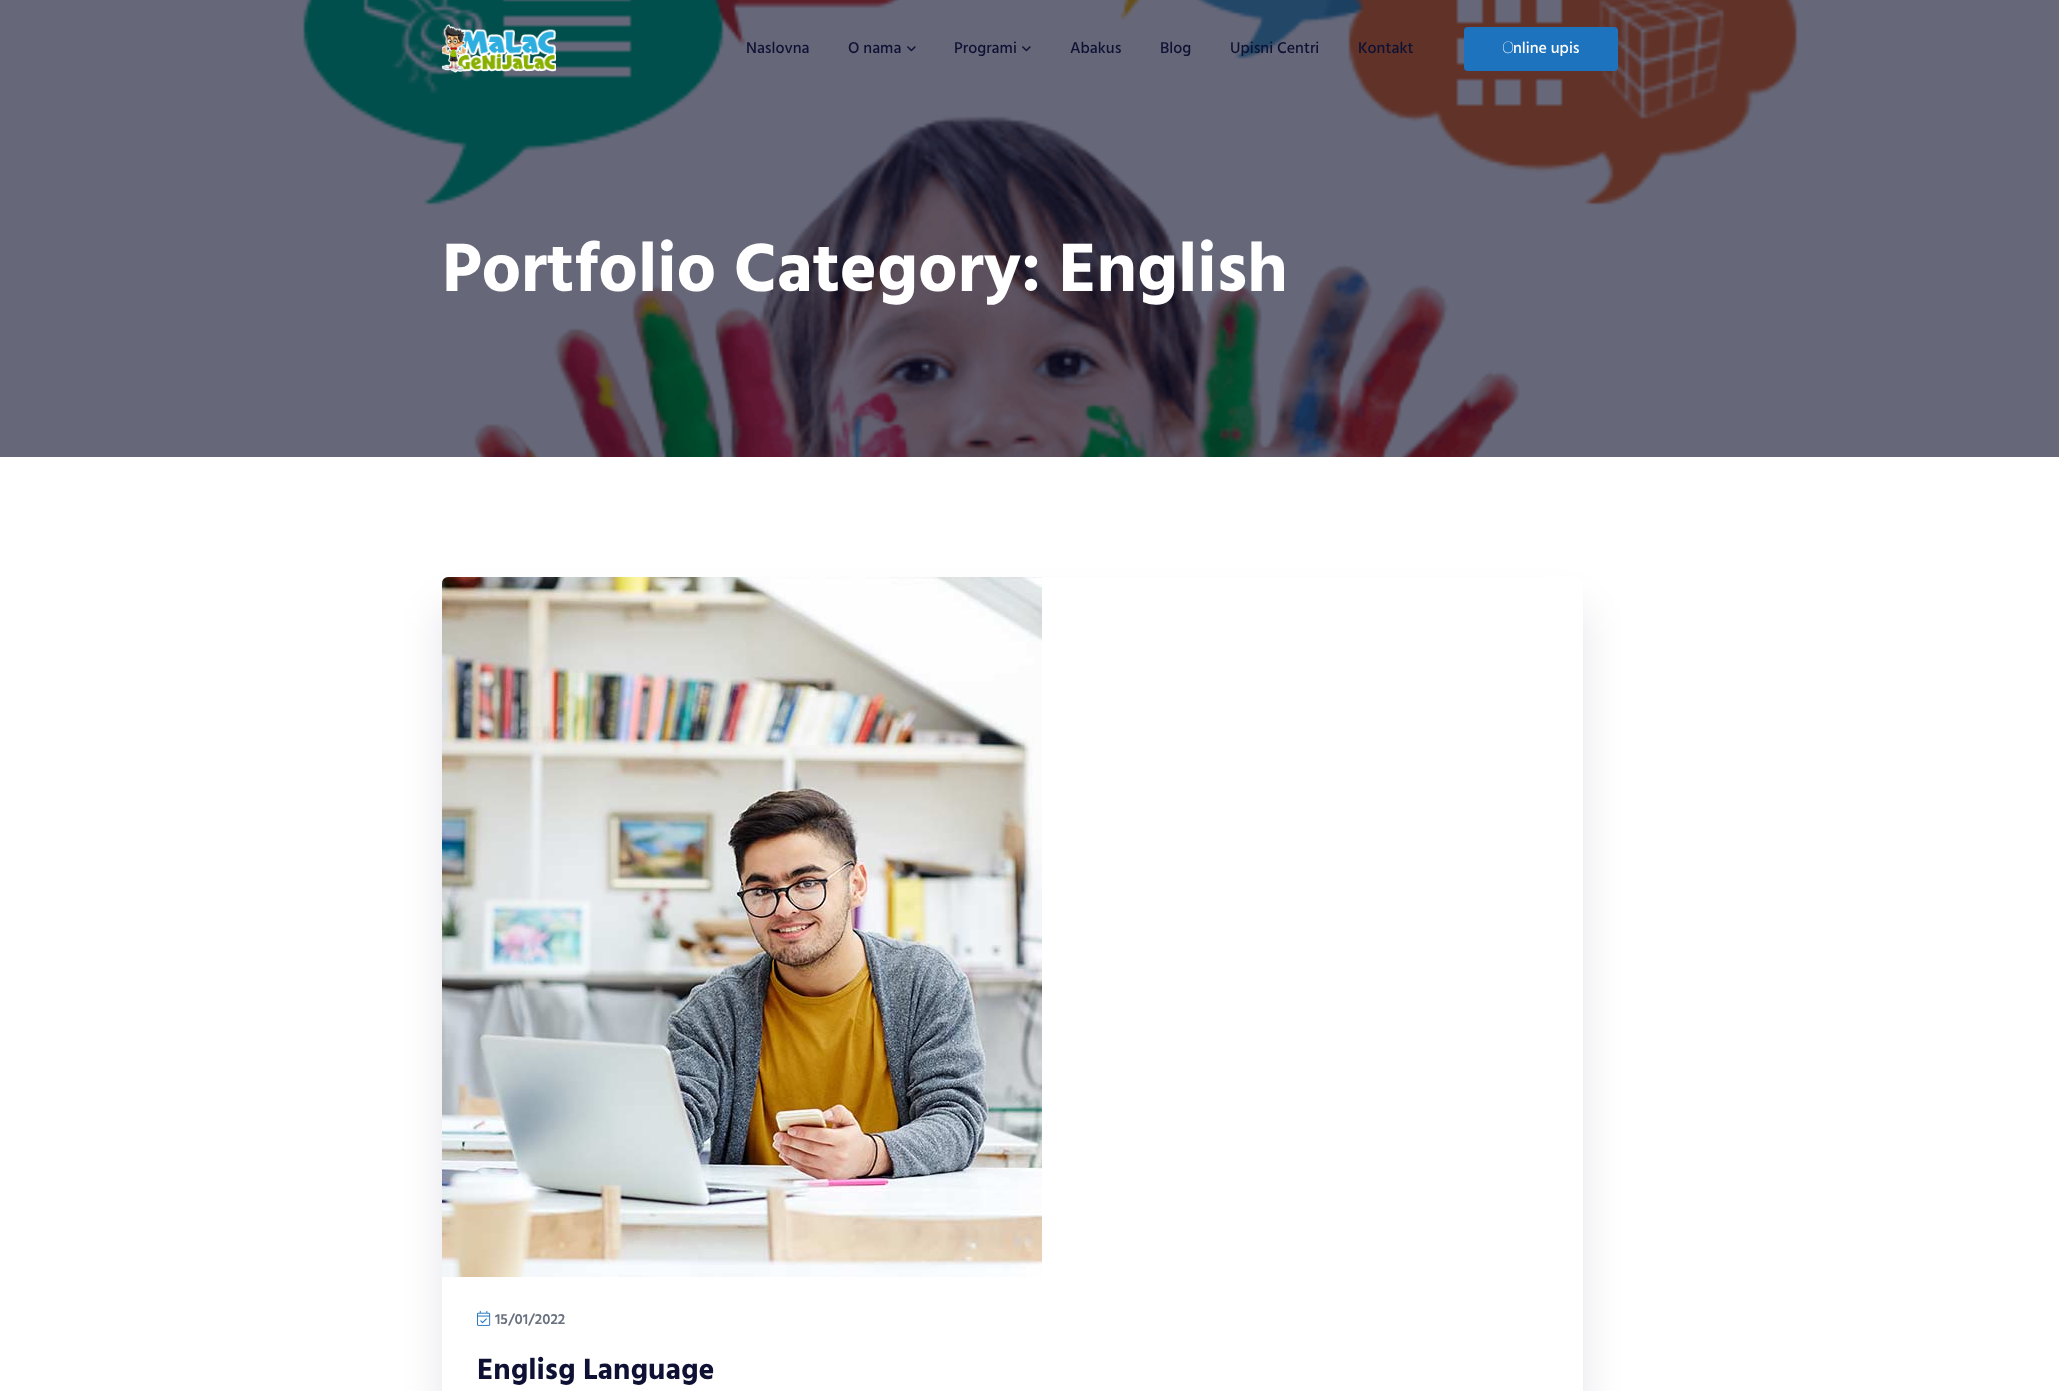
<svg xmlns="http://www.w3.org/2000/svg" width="2059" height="1391">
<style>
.a{font:500 16px Hind;fill:#0e1133}
.b{font:100 16px Noto Sans;fill:#fff}
.c{font:500 16px Hind;fill:#fff}
.d{font:bold 70px Hind;fill:#fff}
.e{font:600 15px Hind;fill:#6a727f}
.f{font:bold 30px Hind;fill:#0e1133}
</style>
<defs>
<clipPath id="clip1"><path d="M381 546h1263v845h-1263zm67 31h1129c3.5 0 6 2.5 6 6v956c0 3.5-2.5 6-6 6h-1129c-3.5 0-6-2.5-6-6v-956c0-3.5 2.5-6 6-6z" clip-rule="evenodd"/></clipPath>
</defs>
<rect width="100%" height="100%" fill="#fff"/>
<path fill="#666879" d="M0 0h2059v457H0z"/>
<image href="3.png" x="303" y="0" width="1495" height="457"/>
<image href="1.png" x="442" y="24" width="114" height="49"/>
<image href="2.png" x="907" y="46" width="9" height="6"/>
<image href="2.png" x="1022" y="46" width="9" height="6"/>
<rect fill="#1e73be" x="1464" y="27" width="154" height="44" rx="4"/>
<g clip-path="url(#clip1)">
<rect fill="#010b3c1a" filter="blur(20px)" x="442" y="607" width="1141" height="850" rx="6"/>
</g>
<image href="4.png" x="442" y="577" width="600" height="700"/>
<image href="5.png" x="477" y="1310" width="14" height="16"/>
<text class="a" x="746" y="53">Naslovna</text>
<text class="a" x="848" y="53">O nama</text>
<text class="a" x="954" y="53">Programi</text>
<text class="a" x="1070" y="53">Abakus</text>
<text class="a" x="1160" y="53">Blog</text>
<text class="a" x="1230" y="53">Upisni Centri</text>
<text class="a" x="1358" y="53">Kontakt</text>
<text class="b" x="1502" y="53">O</text>
<text class="c" x="1513" y="53">nline upis</text>
<text class="d" x="442" y="291">Portfolio Category: English</text>
<text class="e" x="495" y="1324">15/01/2022</text>
<text class="f" x="477" y="1379">Englisg Language</text>
</svg>
